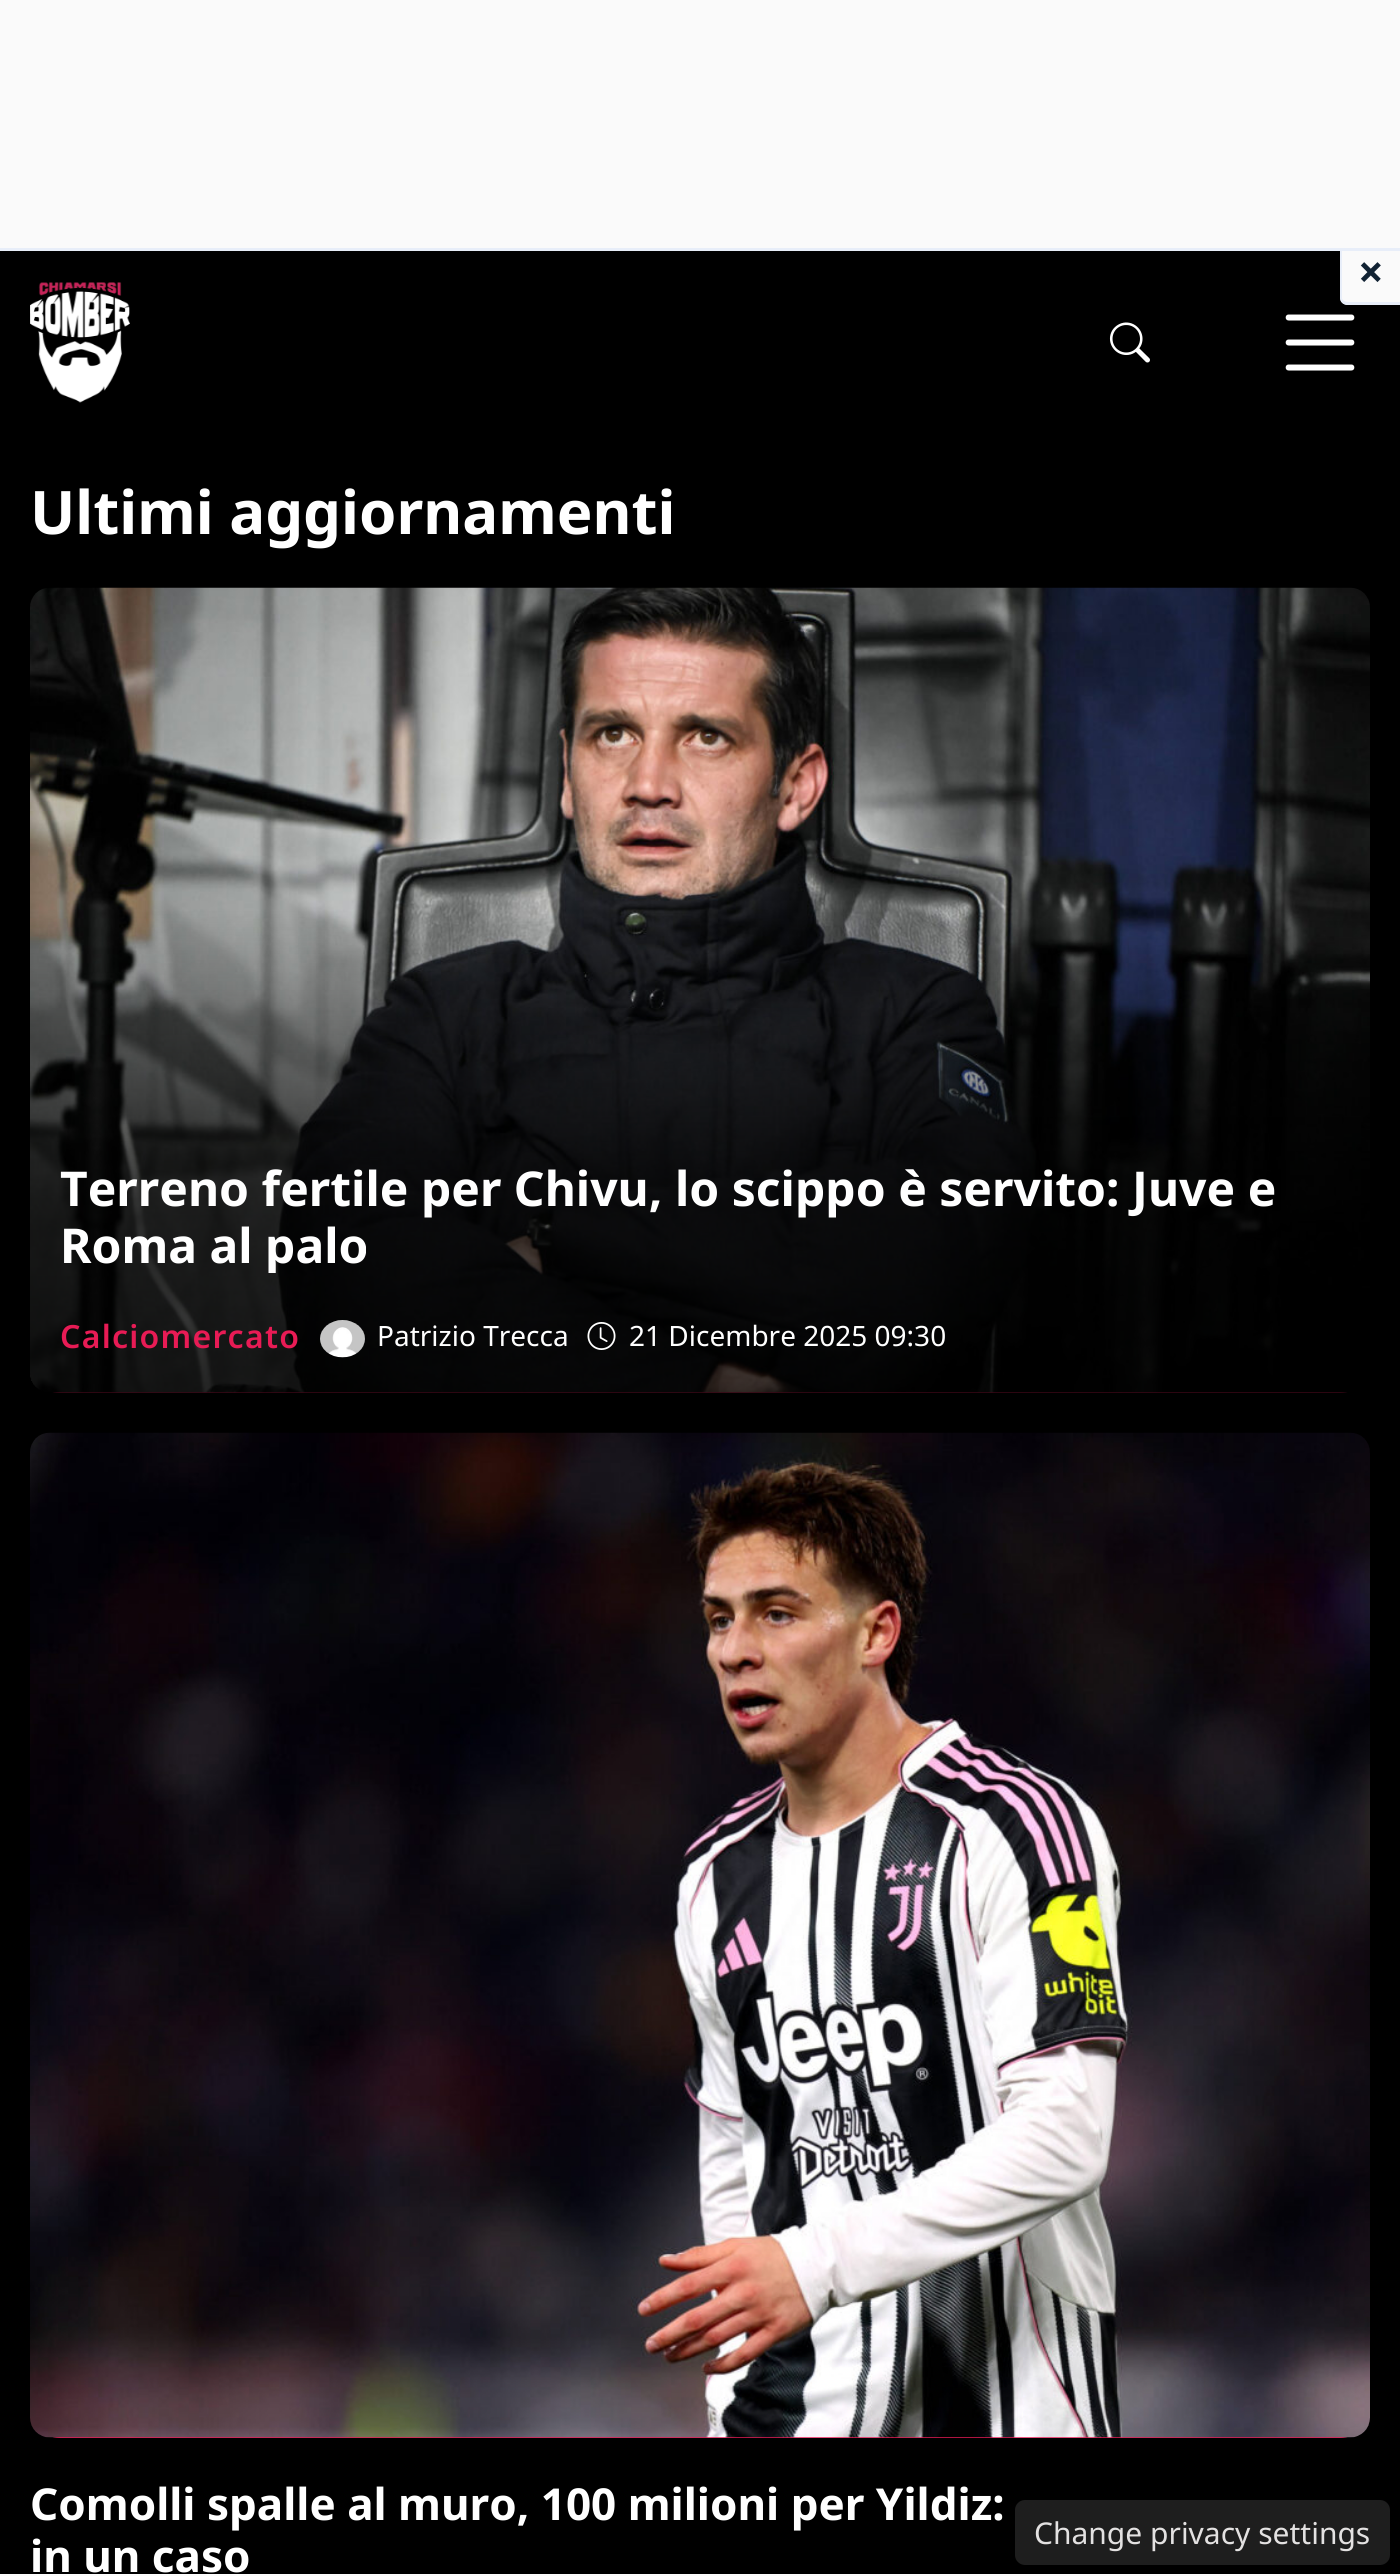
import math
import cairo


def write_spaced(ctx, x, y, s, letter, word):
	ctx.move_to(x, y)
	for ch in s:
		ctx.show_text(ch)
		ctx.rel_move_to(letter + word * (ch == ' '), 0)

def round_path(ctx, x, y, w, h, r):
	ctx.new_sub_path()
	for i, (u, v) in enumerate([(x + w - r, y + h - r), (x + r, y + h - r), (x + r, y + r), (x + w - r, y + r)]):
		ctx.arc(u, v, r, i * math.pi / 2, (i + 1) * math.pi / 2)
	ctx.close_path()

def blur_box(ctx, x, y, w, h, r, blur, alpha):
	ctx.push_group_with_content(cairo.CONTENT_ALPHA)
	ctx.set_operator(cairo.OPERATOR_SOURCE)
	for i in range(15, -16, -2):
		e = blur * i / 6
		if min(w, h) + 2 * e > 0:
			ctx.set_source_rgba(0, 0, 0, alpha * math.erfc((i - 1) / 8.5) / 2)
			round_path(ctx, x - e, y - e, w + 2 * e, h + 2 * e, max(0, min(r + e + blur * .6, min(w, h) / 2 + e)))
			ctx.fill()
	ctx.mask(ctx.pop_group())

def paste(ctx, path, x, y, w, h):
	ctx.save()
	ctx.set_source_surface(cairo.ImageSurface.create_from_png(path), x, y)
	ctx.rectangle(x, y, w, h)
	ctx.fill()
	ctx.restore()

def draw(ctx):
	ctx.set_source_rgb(0, 0, 0)
	ctx.paint()
	ctx.set_source_rgb(0.98, 0.98, 0.98)
	ctx.new_path()
	ctx.move_to(1340, 245)
	ctx.line_to(1400, 245)
	ctx.line_to(1400, 305)
	ctx.line_to(1348, 305)
	ctx.curve_to(1343.5, 305, 1340, 301.5, 1340, 297)
	ctx.close_path()
	ctx.fill()
	ctx.set_source_rgb(0.91, 0.933, 0.976)
	ctx.set_fill_rule(cairo.FILL_RULE_EVEN_ODD)
	ctx.new_path()
	ctx.move_to(1340, 245)
	ctx.line_to(1400, 245)
	ctx.line_to(1400, 305)
	ctx.line_to(1348, 305)
	ctx.curve_to(1343, 305, 1340, 302, 1340, 298)
	ctx.close_path()
	ctx.move_to(1342, 245)
	ctx.line_to(1400, 245)
	ctx.line_to(1400, 302)
	ctx.line_to(1348, 302)
	ctx.curve_to(1345, 302, 1342, 300, 1342, 298)
	ctx.close_path()
	ctx.fill()
	ctx.set_source_rgb(0.98, 0.98, 0.98)
	ctx.rectangle(0, 0, 1400, 248)
	ctx.fill()
	ctx.set_source_rgb(0.91, 0.933, 0.976)
	ctx.rectangle(0, 248, 1400, 3)
	ctx.fill()
	ctx.select_font_face('Noto Sans', cairo.FONT_SLANT_NORMAL, cairo.FONT_WEIGHT_BOLD)
	ctx.set_font_size(45)
	ctx.set_source_rgb(0.067, 0.133, 0.2)
	ctx.move_to(1358, 288)
	ctx.show_text('×')
	paste(ctx, 'media/1.png', 30, 282, 100, 121)
	paste(ctx, 'media/2.png', 1109, 322, 41, 41)
	paste(ctx, 'media/3.png', 1285, 314, 70, 57)
	ctx.set_font_size(60)
	ctx.set_source_rgb(1, 1, 1)
	ctx.move_to(30, 534)
	ctx.show_text('Ultimi aggiornamenti')
	ctx.set_source_rgb(0.91, 0.106, 0.333)
	round_path(ctx, 30, 588, 1340, 805, 30)
	ctx.fill()
	round_path(ctx, 30, 1433, 1340, 1005, 30)
	ctx.fill()
	ctx.save()
	ctx.new_path()
	ctx.move_to(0, 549)
	ctx.line_to(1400, 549)
	ctx.line_to(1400, 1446)
	ctx.line_to(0, 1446)
	ctx.close_path()
	ctx.move_to(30, 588)
	ctx.line_to(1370, 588)
	ctx.line_to(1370, 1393)
	ctx.line_to(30, 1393)
	ctx.close_path()
	ctx.clip()
	ctx.set_source_rgb(0, 0, 0)
	blur_box(ctx, 30, 595, 1340, 805, 0, 15, 0.6)
	ctx.restore()
	paste(ctx, 'media/4.png', 30, 587, 1340, 806)
	gradient = cairo.LinearGradient(700, 1393, 700, 910)
	gradient.add_color_stop_rgba(0, 0, 0, 0, 0.75)
	gradient.add_color_stop_rgba(0.4, 0, 0, 0, 0.7)
	gradient.add_color_stop_rgba(1, 0, 0, 0, 0)
	ctx.set_source(gradient)
	ctx.new_path()
	ctx.move_to(30, 910)
	ctx.line_to(1370, 910)
	ctx.line_to(1370, 1373)
	ctx.curve_to(1370, 1384, 1361, 1393, 1350, 1393)
	ctx.line_to(50, 1393)
	ctx.curve_to(39, 1393, 30, 1384, 30, 1373)
	ctx.close_path()
	ctx.fill()
	ctx.set_font_size(48)
	ctx.set_source_rgb(1, 1, 1)
	ctx.move_to(60, 1206)
	ctx.show_text('Terreno fertile per Chivu, lo scippo è servito: Juve e')
	ctx.save()
	ctx.set_fill_rule(cairo.FILL_RULE_WINDING)
	ctx.rectangle(60, 1158, 1280, 115)
	ctx.clip()
	ctx.move_to(60, 1263)
	ctx.show_text('Roma al palo')
	ctx.restore()
	ctx.select_font_face('Noto Sans SemiBold')
	ctx.set_font_size(32)
	ctx.set_source_rgb(0.91, 0.106, 0.333)
	write_spaced(ctx, 60, 1348, 'Calciomercato', 1.25, 0)
	paste(ctx, 'media/5.png', 320, 1320, 45, 38)
	ctx.select_font_face('Noto Sans')
	ctx.set_font_size(28)
	ctx.set_source_rgb(1, 1, 1)
	ctx.move_to(377, 1346)
	ctx.show_text('Patrizio Trecca')
	paste(ctx, 'media/6.png', 587, 1322, 29, 28)
	ctx.move_to(629, 1346)
	ctx.show_text('21 Dicembre 2025 09:30')
	ctx.save()
	ctx.new_path()
	ctx.move_to(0, 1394)
	ctx.line_to(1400, 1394)
	ctx.line_to(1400, 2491)
	ctx.line_to(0, 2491)
	ctx.close_path()
	ctx.move_to(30, 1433)
	ctx.line_to(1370, 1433)
	ctx.line_to(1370, 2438)
	ctx.line_to(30, 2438)
	ctx.close_path()
	ctx.clip()
	ctx.set_source_rgb(0, 0, 0)
	blur_box(ctx, 30, 1440, 1340, 1005, 0, 15, 0.6)
	ctx.restore()
	paste(ctx, 'media/7.png', 30, 1432, 1340, 1006)
	ctx.select_font_face('Noto Sans', cairo.FONT_SLANT_NORMAL, cairo.FONT_WEIGHT_BOLD)
	ctx.set_font_size(44)
	ctx.move_to(30, 2520)
	ctx.show_text('Comolli spalle al muro, 100 milioni per Yildiz:')
	ctx.move_to(30, 2572)
	ctx.show_text('in un caso')
	ctx.set_source_rgb(0.118, 0.118, 0.118)
	round_path(ctx, 1015, 2500, 375, 65, 10)
	ctx.fill()
	ctx.select_font_face('Noto Sans')
	ctx.set_font_size(30)
	ctx.set_source_rgb(0.89, 0.882, 0.882)
	ctx.move_to(1034, 2544)
	ctx.show_text('Change privacy settings')


surface = cairo.ImageSurface(cairo.FORMAT_RGB24, 1400, 2574)
ctx = cairo.Context(surface)
options = cairo.FontOptions()
options.set_hint_metrics(cairo.HINT_METRICS_OFF)
options.set_hint_style(cairo.HINT_STYLE_NONE)
ctx.set_font_options(options)
ctx.set_miter_limit(4)
draw(ctx)
surface.write_to_png('image.png')
